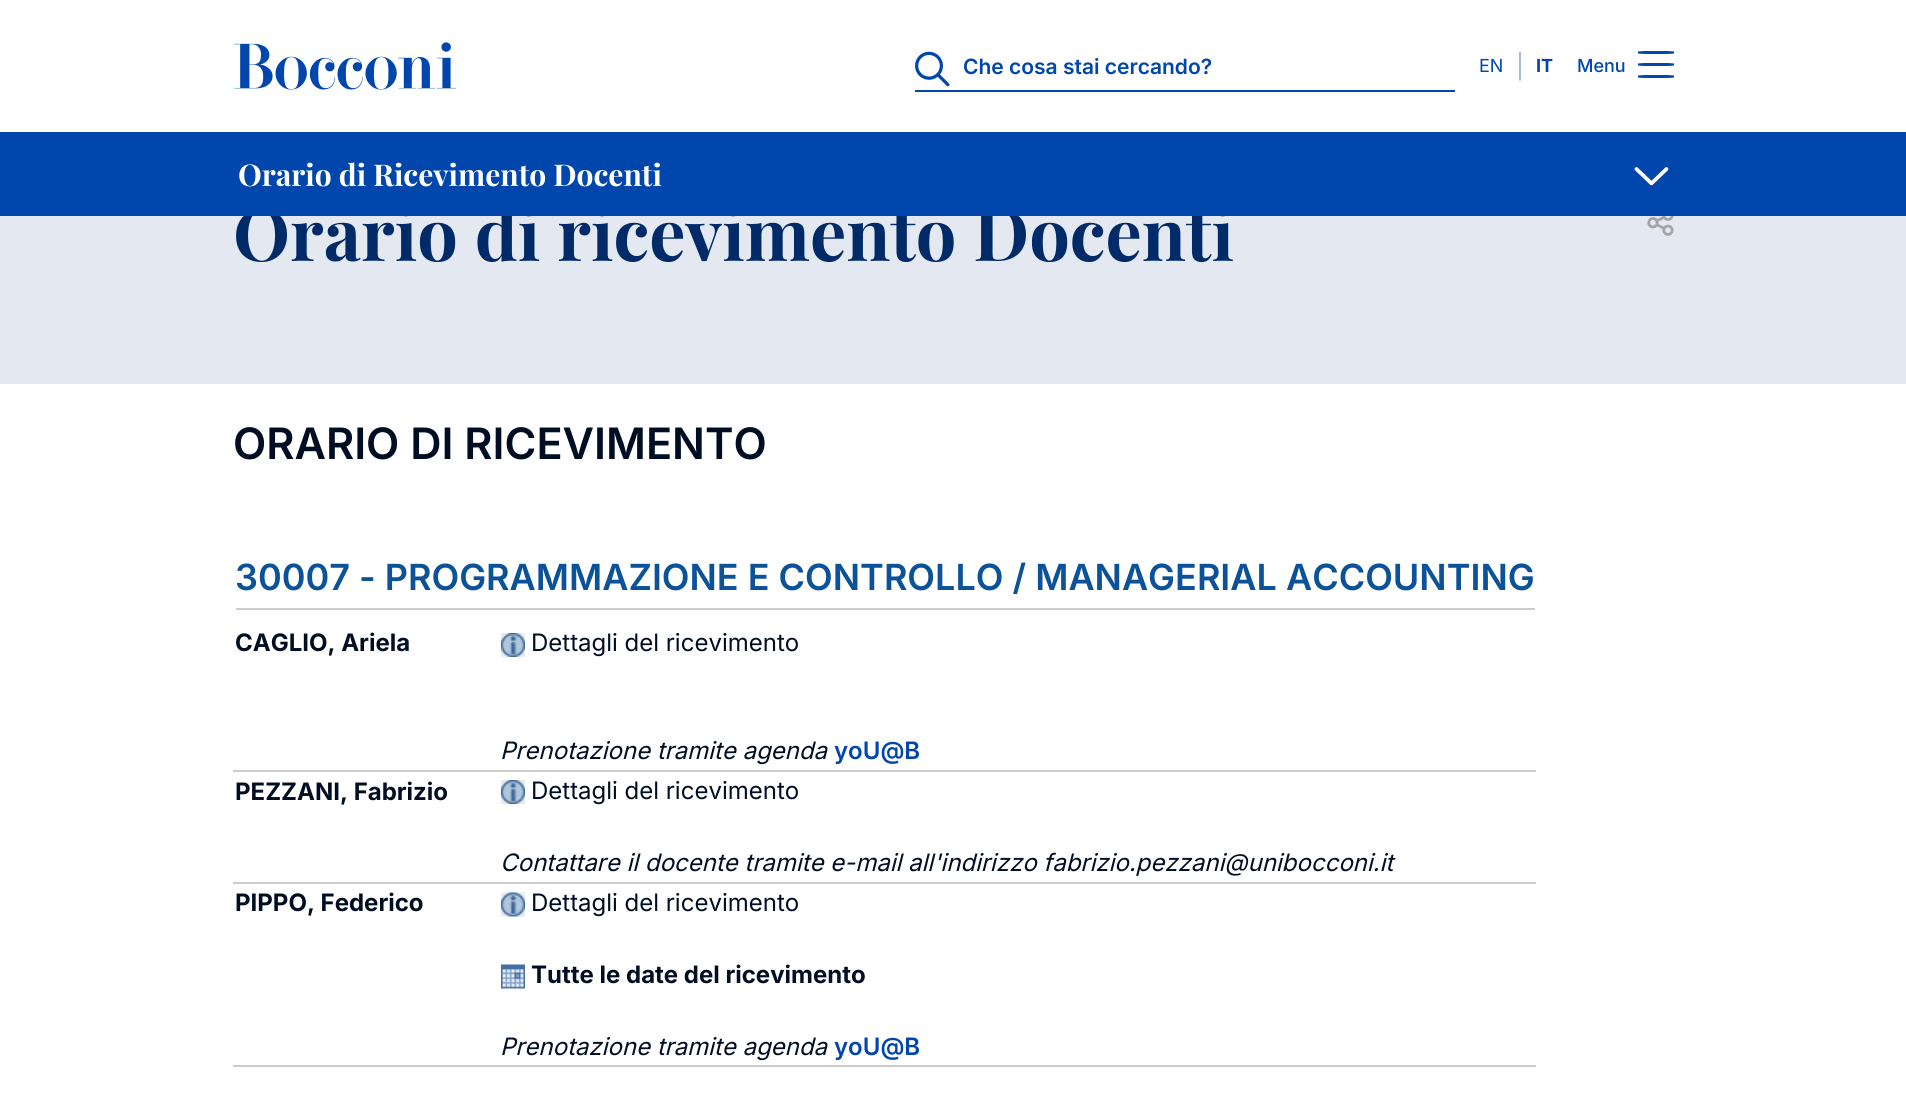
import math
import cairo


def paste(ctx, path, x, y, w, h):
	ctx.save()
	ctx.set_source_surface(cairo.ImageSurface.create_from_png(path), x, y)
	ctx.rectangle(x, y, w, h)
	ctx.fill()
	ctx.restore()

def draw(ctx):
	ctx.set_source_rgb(1, 1, 1)
	ctx.paint()
	paste(ctx, 'media/1.png', 234, 42, 222, 48)
	ctx.set_source_rgb(0, 0.275, 0.678)
	ctx.rectangle(915, 90, 540, 2)
	ctx.fill()
	paste(ctx, 'media/2.png', 915, 51, 35, 36)
	ctx.select_font_face('Inter SemiBold')
	ctx.set_font_size(21)
	ctx.move_to(963, 74)
	ctx.show_text('Che cosa stai cercando?')
	ctx.select_font_face('Inter')
	ctx.set_font_size(18)
	ctx.move_to(1479, 72)
	ctx.show_text('EN')
	ctx.set_font_size(24)
	ctx.set_source_rgb(0.635, 0.722, 0.851)
	ctx.move_to(1516, 75)
	ctx.show_text('|')
	ctx.select_font_face('Inter', cairo.FONT_SLANT_NORMAL, cairo.FONT_WEIGHT_BOLD)
	ctx.set_font_size(18)
	ctx.set_source_rgb(0, 0.275, 0.678)
	ctx.move_to(1536, 72)
	ctx.show_text('IT')
	ctx.select_font_face('Inter Medium')
	ctx.move_to(1577, 72)
	ctx.show_text('Menu')
	ctx.new_path()
	ctx.move_to(1645, 51)
	ctx.line_to(1667, 51)
	ctx.curve_to(1671, 51, 1674, 51.5, 1674, 51.5)
	ctx.line_to(1674, 53.5)
	ctx.curve_to(1674, 53.5, 1671, 54, 1667, 54)
	ctx.line_to(1645, 54)
	ctx.curve_to(1641, 54, 1638, 53.5, 1638, 53.5)
	ctx.line_to(1638, 51.5)
	ctx.curve_to(1638, 51.5, 1641, 51, 1645, 51)
	ctx.close_path()
	ctx.move_to(1645, 63)
	ctx.line_to(1667, 63)
	ctx.curve_to(1671, 63, 1674, 63.5, 1674, 63.5)
	ctx.line_to(1674, 65.5)
	ctx.curve_to(1674, 65.5, 1671, 66, 1667, 66)
	ctx.line_to(1645, 66)
	ctx.curve_to(1641, 66, 1638, 65.5, 1638, 65.5)
	ctx.line_to(1638, 63.5)
	ctx.curve_to(1638, 63.5, 1641, 63, 1645, 63)
	ctx.close_path()
	ctx.move_to(1645, 75)
	ctx.line_to(1667, 75)
	ctx.curve_to(1671, 75, 1674, 75.5, 1674, 75.5)
	ctx.line_to(1674, 77.5)
	ctx.curve_to(1674, 77.5, 1671, 78, 1667, 78)
	ctx.line_to(1645, 78)
	ctx.curve_to(1641, 78, 1638, 77.5, 1638, 77.5)
	ctx.line_to(1638, 75.5)
	ctx.curve_to(1638, 75.5, 1641, 75, 1645, 75)
	ctx.close_path()
	ctx.fill()
	ctx.set_source_rgb(0.894, 0.914, 0.945)
	ctx.rectangle(0, 216, 1906, 168)
	ctx.fill()
	ctx.select_font_face('Playfair Display', cairo.FONT_SLANT_NORMAL, cairo.FONT_WEIGHT_BOLD)
	ctx.set_font_size(72)
	ctx.set_source_rgb(0, 0.165, 0.408)
	ctx.move_to(233, 261)
	ctx.show_text('Orario di ricevimento Docenti')
	ctx.set_source_rgb(0, 0.275, 0.678)
	ctx.rectangle(0, 132, 1906, 84)
	ctx.fill()
	ctx.set_font_size(30)
	ctx.set_source_rgb(1, 1, 1)
	ctx.move_to(238, 186)
	ctx.show_text('Orario di Ricevimento Docenti')
	paste(ctx, 'media/3.png', 1634, 167, 35, 19)
	paste(ctx, 'media/4.png', 1647, 216, 27, 20)
	ctx.select_font_face('Inter SemiBold')
	ctx.set_font_size(43.25)
	ctx.set_source_rgb(0, 0.055, 0.137)
	ctx.move_to(233, 459)
	ctx.show_text('ORARIO DI RICEVIMENTO')
	ctx.set_source_rgb(0.8, 0.8, 0.8)
	ctx.rectangle(236, 608, 1299, 2)
	ctx.fill()
	ctx.set_font_size(36)
	ctx.set_source_rgb(0.047, 0.322, 0.6)
	ctx.move_to(235, 590)
	ctx.show_text('30007 - PROGRAMMAZIONE E CONTROLLO / MANAGERIAL ACCOUNTING')
	ctx.select_font_face('Inter', cairo.FONT_SLANT_NORMAL, cairo.FONT_WEIGHT_BOLD)
	ctx.set_font_size(24)
	ctx.set_source_rgb(0, 0.055, 0.137)
	ctx.move_to(235, 651)
	ctx.show_text('CAGLIO, Ariela')
	ctx.set_source_rgb(0.8, 0.8, 0.8)
	ctx.rectangle(233, 770, 1303, 2)
	ctx.fill()
	paste(ctx, 'media/5.png', 501, 633, 24, 24)
	ctx.select_font_face('Inter')
	ctx.set_source_rgb(0, 0.055, 0.137)
	ctx.move_to(531, 651)
	ctx.show_text('Dettagli del ricevimento')
	ctx.select_font_face('Inter', cairo.FONT_SLANT_ITALIC)
	ctx.move_to(500, 759)
	ctx.show_text('Prenotazione tramite agenda')
	ctx.select_font_face('Inter SemiBold')
	ctx.set_source_rgb(0, 0.275, 0.678)
	ctx.move_to(834, 759)
	ctx.show_text('yoU@B')
	ctx.select_font_face('Inter', cairo.FONT_SLANT_NORMAL, cairo.FONT_WEIGHT_BOLD)
	ctx.set_source_rgb(0, 0.055, 0.137)
	ctx.move_to(235, 800)
	ctx.show_text('PEZZANI, Fabrizio')
	ctx.set_source_rgb(0.8, 0.8, 0.8)
	ctx.rectangle(233, 882, 1303, 2)
	ctx.fill()
	paste(ctx, 'media/5.png', 501, 780, 24, 24)
	ctx.select_font_face('Inter')
	ctx.set_source_rgb(0, 0.055, 0.137)
	ctx.move_to(531, 799)
	ctx.show_text('Dettagli del ricevimento')
	ctx.select_font_face('Inter', cairo.FONT_SLANT_ITALIC)
	ctx.move_to(500, 871)
	ctx.show_text('Contattare il docente tramite e-mail all\'indirizzo fabrizio.pezzani@unibocconi.it')
	ctx.select_font_face('Inter', cairo.FONT_SLANT_NORMAL, cairo.FONT_WEIGHT_BOLD)
	ctx.move_to(235, 911)
	ctx.show_text('PIPPO, Federico')
	ctx.set_source_rgb(0.8, 0.8, 0.8)
	ctx.rectangle(233, 1065, 1303, 2)
	ctx.fill()
	paste(ctx, 'media/6.png', 501, 892, 24, 25)
	ctx.select_font_face('Inter')
	ctx.set_source_rgb(0, 0.055, 0.137)
	ctx.move_to(531, 911)
	ctx.show_text('Dettagli del ricevimento')
	paste(ctx, 'media/7.png', 501, 964, 24, 25)
	ctx.select_font_face('Inter', cairo.FONT_SLANT_NORMAL, cairo.FONT_WEIGHT_BOLD)
	ctx.move_to(531, 983)
	ctx.show_text('Tutte le date del ricevimento')
	ctx.select_font_face('Inter', cairo.FONT_SLANT_ITALIC)
	ctx.move_to(500, 1055)
	ctx.show_text('Prenotazione tramite agenda')
	ctx.select_font_face('Inter SemiBold')
	ctx.set_source_rgb(0, 0.275, 0.678)
	ctx.move_to(834, 1055)
	ctx.show_text('yoU@B')


surface = cairo.ImageSurface(cairo.FORMAT_RGB24, 1906, 1113)
ctx = cairo.Context(surface)
options = cairo.FontOptions()
options.set_hint_metrics(cairo.HINT_METRICS_OFF)
options.set_hint_style(cairo.HINT_STYLE_NONE)
ctx.set_font_options(options)
ctx.set_miter_limit(4)
draw(ctx)
surface.write_to_png('image.png')
